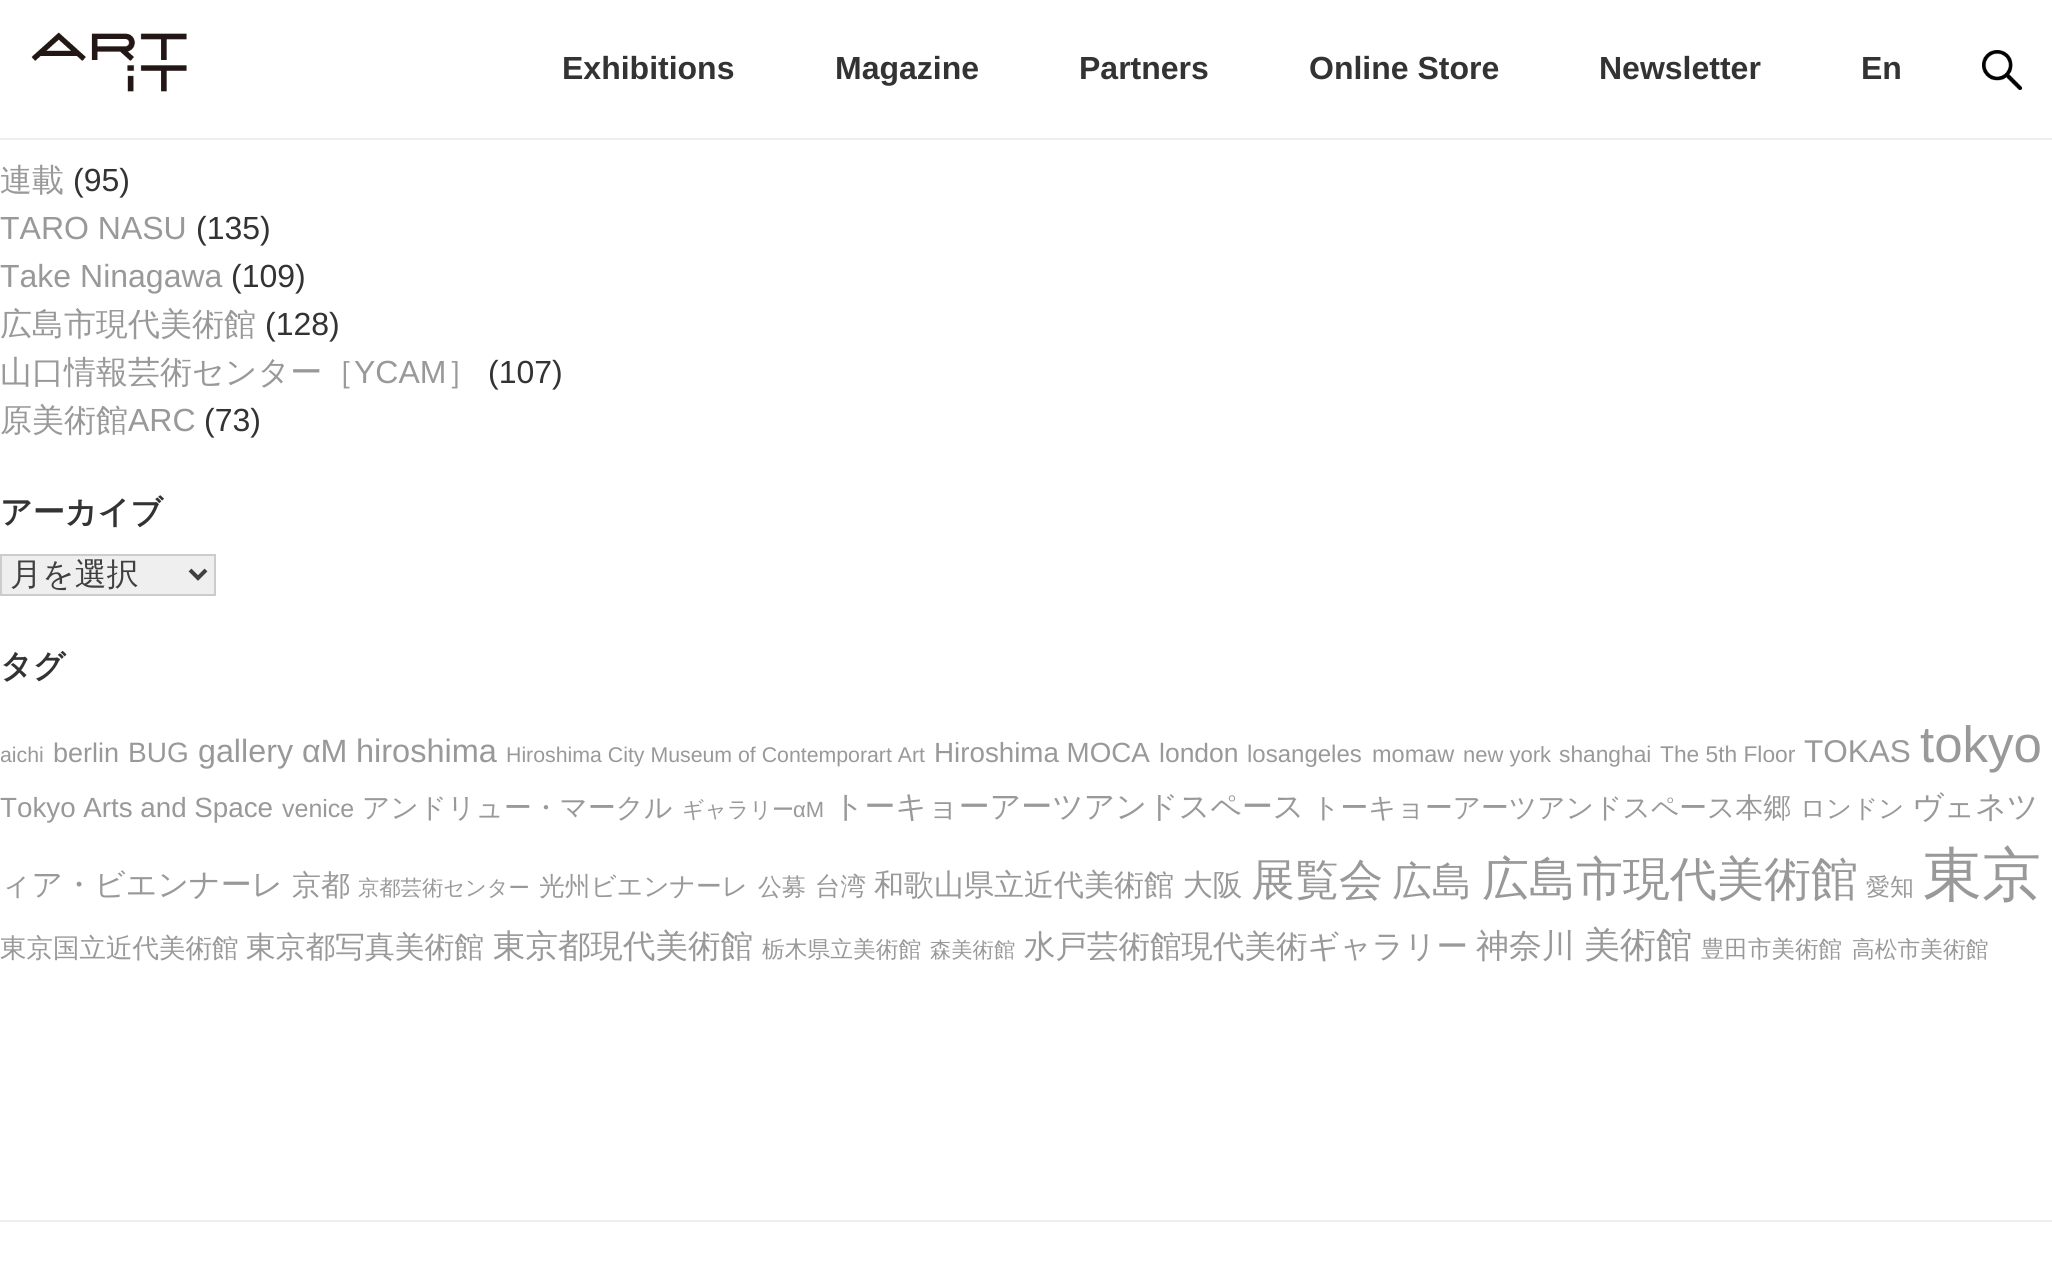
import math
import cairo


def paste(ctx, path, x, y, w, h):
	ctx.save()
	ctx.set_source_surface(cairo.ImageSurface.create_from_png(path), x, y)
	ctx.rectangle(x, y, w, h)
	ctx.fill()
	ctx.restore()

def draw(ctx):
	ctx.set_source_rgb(1, 1, 1)
	ctx.paint()
	ctx.set_source_rgb(0.933, 0.933, 0.933)
	ctx.rectangle(0, 138, 2052, 2)
	ctx.fill()
	paste(ctx, 'media/1.png', 31, 32, 156, 60)
	ctx.select_font_face('Liberation Sans', cairo.FONT_SLANT_NORMAL, cairo.FONT_WEIGHT_BOLD)
	ctx.set_font_size(32)
	ctx.set_source_rgb(0.2, 0.2, 0.2)
	for x, y, s in [
		(562, 79, 'Exhibitions'),
		(835, 79, 'Magazine'),
		(1079, 79, 'Partners'),
		(1309, 79, 'Online Store'),
		(1599, 79, 'Newsletter'),
		(1861, 79, 'En'),
	]:
		ctx.move_to(x, y)
		ctx.show_text(s)
	paste(ctx, 'media/2.png', 1982, 50, 40, 40)
	ctx.select_font_face('WenQuanYi Zen Hei Medium')
	ctx.set_source_rgb(0.6, 0.6, 0.6)
	ctx.move_to(0, 191)
	ctx.show_text('連載')
	ctx.select_font_face('Liberation Sans')
	ctx.set_source_rgb(0.2, 0.2, 0.2)
	ctx.move_to(73, 191)
	ctx.show_text('(95)')
	ctx.set_source_rgb(0.6, 0.6, 0.6)
	ctx.move_to(0, 239)
	ctx.show_text('TARO NASU')
	ctx.set_source_rgb(0.2, 0.2, 0.2)
	ctx.move_to(196, 239)
	ctx.show_text('(135)')
	ctx.set_source_rgb(0.6, 0.6, 0.6)
	ctx.move_to(0, 287)
	ctx.show_text('Take Ninagawa')
	ctx.set_source_rgb(0.2, 0.2, 0.2)
	ctx.move_to(231, 287)
	ctx.show_text('(109)')
	ctx.select_font_face('WenQuanYi Zen Hei Medium')
	ctx.set_source_rgb(0.6, 0.6, 0.6)
	ctx.move_to(0, 335)
	ctx.show_text('広島市現代美術館')
	ctx.select_font_face('Liberation Sans')
	ctx.set_source_rgb(0.2, 0.2, 0.2)
	ctx.move_to(265, 335)
	ctx.show_text('(128)')
	ctx.select_font_face('WenQuanYi Zen Hei Medium')
	ctx.set_source_rgb(0.6, 0.6, 0.6)
	ctx.move_to(0, 383)
	ctx.show_text('山口情報芸術センター［')
	ctx.select_font_face('Liberation Sans')
	ctx.move_to(354, 383)
	ctx.show_text('YCAM')
	ctx.select_font_face('WenQuanYi Zen Hei Medium')
	ctx.move_to(447, 383)
	ctx.show_text('］')
	ctx.select_font_face('Liberation Sans')
	ctx.set_source_rgb(0.2, 0.2, 0.2)
	ctx.move_to(488, 383)
	ctx.show_text('(107)')
	ctx.select_font_face('WenQuanYi Zen Hei Medium')
	ctx.set_source_rgb(0.6, 0.6, 0.6)
	ctx.move_to(0, 431)
	ctx.show_text('原美術館')
	ctx.select_font_face('Liberation Sans')
	ctx.move_to(128, 431)
	ctx.show_text('ARC')
	ctx.set_source_rgb(0.2, 0.2, 0.2)
	ctx.move_to(204, 431)
	ctx.show_text('(73)')
	ctx.select_font_face('WenQuanYi Zen Hei', cairo.FONT_SLANT_NORMAL, cairo.FONT_WEIGHT_BOLD)
	ctx.move_to(0, 523)
	ctx.show_text('アーカイブ')
	ctx.set_source_rgb(0.937, 0.937, 0.937)
	ctx.rectangle(1, 555, 214, 40)
	ctx.fill_preserve()
	ctx.set_source_rgb(0.8, 0.8, 0.8)
	ctx.stroke()
	ctx.new_path()
	ctx.move_to(190, 570)
	ctx.line_to(198, 578)
	ctx.line_to(206, 570)
	ctx.set_source_rgb(0.251, 0.251, 0.251)
	ctx.set_line_width(4)
	ctx.stroke()
	ctx.select_font_face('WenQuanYi Zen Hei Medium')
	ctx.move_to(10, 585)
	ctx.show_text('月を選択')
	ctx.select_font_face('WenQuanYi Zen Hei', cairo.FONT_SLANT_NORMAL, cairo.FONT_WEIGHT_BOLD)
	ctx.set_source_rgb(0.2, 0.2, 0.2)
	ctx.move_to(0, 677)
	ctx.show_text('タグ')
	ctx.select_font_face('Liberation Sans')
	ctx.set_font_size(21.3)
	ctx.set_source_rgb(0.6, 0.6, 0.6)
	ctx.move_to(0, 762)
	ctx.show_text('aichi')
	ctx.set_font_size(27)
	ctx.move_to(53, 762)
	ctx.show_text('berlin')
	ctx.set_font_size(28)
	ctx.move_to(128, 762)
	ctx.show_text('BUG')
	ctx.set_font_size(32.25)
	ctx.move_to(198, 762)
	ctx.show_text('gallery αM')
	ctx.set_font_size(32.5)
	ctx.move_to(356, 762)
	ctx.show_text('hiroshima')
	ctx.set_font_size(21.3)
	ctx.move_to(506, 762)
	ctx.show_text('Hiroshima City Museum of Contemporart Art')
	ctx.set_font_size(27.75)
	ctx.move_to(934, 762)
	ctx.show_text('Hiroshima MOCA')
	ctx.set_font_size(26.5)
	ctx.move_to(1159, 762)
	ctx.show_text('london')
	ctx.set_font_size(24)
	ctx.move_to(1247, 762)
	ctx.show_text('losangeles')
	ctx.set_font_size(23.5)
	ctx.move_to(1372, 762)
	ctx.show_text('momaw')
	ctx.set_font_size(22)
	ctx.move_to(1463, 762)
	ctx.show_text('new york')
	ctx.set_font_size(22.75)
	ctx.move_to(1559, 762)
	ctx.show_text('shanghai')
	ctx.move_to(1660, 762)
	ctx.show_text('The 5th Floor')
	ctx.set_font_size(31.5)
	ctx.move_to(1804, 762)
	ctx.show_text('TOKAS')
	ctx.set_font_size(51)
	ctx.move_to(1920, 762)
	ctx.show_text('tokyo')
	ctx.set_font_size(27.75)
	ctx.move_to(0, 817)
	ctx.show_text('Tokyo Arts and Space')
	ctx.set_font_size(25)
	ctx.move_to(282, 817)
	ctx.show_text('venice')
	ctx.select_font_face('WenQuanYi Zen Hei Medium')
	ctx.set_font_size(27.75)
	ctx.move_to(362, 817)
	ctx.show_text('アンドリュー・マークル')
	ctx.set_font_size(22)
	ctx.move_to(682, 817)
	ctx.show_text('ギャラリー')
	ctx.select_font_face('Liberation Sans')
	ctx.move_to(793, 817)
	ctx.show_text('αM')
	ctx.select_font_face('WenQuanYi Zen Hei Medium')
	ctx.set_font_size(30.9)
	ctx.move_to(833, 817)
	ctx.show_text('トーキョーアーツアンドスペース')
	ctx.set_font_size(27.75)
	ctx.move_to(1312, 817)
	ctx.show_text('トーキョーアーツアンドスペース本郷')
	ctx.set_font_size(25.5)
	ctx.move_to(1800, 817)
	ctx.show_text('ロンドン')
	ctx.set_font_size(30.9)
	ctx.move_to(1912, 817)
	ctx.show_text('ヴェネツ')
	ctx.move_to(0, 895)
	ctx.show_text('ィア・ビエンナーレ')
	ctx.set_font_size(29)
	ctx.move_to(292, 895)
	ctx.show_text('京都')
	ctx.set_font_size(21.3)
	ctx.move_to(358, 895)
	ctx.show_text('京都芸術センター')
	ctx.set_font_size(25.75)
	ctx.move_to(539, 895)
	ctx.show_text('光州ビエンナーレ')
	ctx.set_font_size(24)
	ctx.move_to(758, 895)
	ctx.show_text('公募')
	ctx.set_font_size(25.5)
	ctx.move_to(815, 895)
	ctx.show_text('台湾')
	ctx.set_font_size(30)
	ctx.move_to(874, 895)
	ctx.show_text('和歌山県立近代美術館')
	ctx.set_font_size(29.75)
	ctx.move_to(1183, 895)
	ctx.show_text('大阪')
	ctx.set_font_size(44)
	ctx.move_to(1251, 895)
	ctx.show_text('展覧会')
	ctx.set_font_size(40)
	ctx.move_to(1392, 895)
	ctx.show_text('広島')
	ctx.set_font_size(47)
	ctx.move_to(1482, 895)
	ctx.show_text('広島市現代美術館')
	ctx.set_font_size(24)
	ctx.move_to(1866, 895)
	ctx.show_text('愛知')
	ctx.set_font_size(59)
	ctx.move_to(1923, 895)
	ctx.show_text('東京')
	ctx.set_font_size(26.5)
	ctx.move_to(0, 957)
	ctx.show_text('東京国立近代美術館')
	ctx.set_font_size(29.75)
	ctx.move_to(246, 957)
	ctx.show_text('東京都写真美術館')
	ctx.set_font_size(32.5)
	ctx.move_to(493, 957)
	ctx.show_text('東京都現代美術館')
	ctx.set_font_size(22.75)
	ctx.move_to(762, 957)
	ctx.show_text('栃木県立美術館')
	ctx.set_font_size(21.3)
	ctx.move_to(930, 957)
	ctx.show_text('森美術館')
	ctx.set_font_size(31.5)
	ctx.move_to(1024, 957)
	ctx.show_text('水戸芸術館現代美術ギャラリー')
	ctx.set_font_size(33)
	ctx.move_to(1476, 957)
	ctx.show_text('神奈川')
	ctx.set_font_size(36)
	ctx.move_to(1584, 957)
	ctx.show_text('美術館')
	ctx.set_font_size(23.5)
	ctx.move_to(1701, 957)
	ctx.show_text('豊田市美術館')
	ctx.set_font_size(22.75)
	ctx.move_to(1852, 957)
	ctx.show_text('高松市美術館')
	ctx.set_source_rgb(0.933, 0.933, 0.933)
	ctx.rectangle(0, 1220, 2052, 2)
	ctx.fill()


surface = cairo.ImageSurface(cairo.FORMAT_RGB24, 2052, 1270)
ctx = cairo.Context(surface)
options = cairo.FontOptions()
options.set_hint_metrics(cairo.HINT_METRICS_OFF)
options.set_hint_style(cairo.HINT_STYLE_NONE)
ctx.set_font_options(options)
ctx.set_miter_limit(4)
draw(ctx)
surface.write_to_png('image.png')
